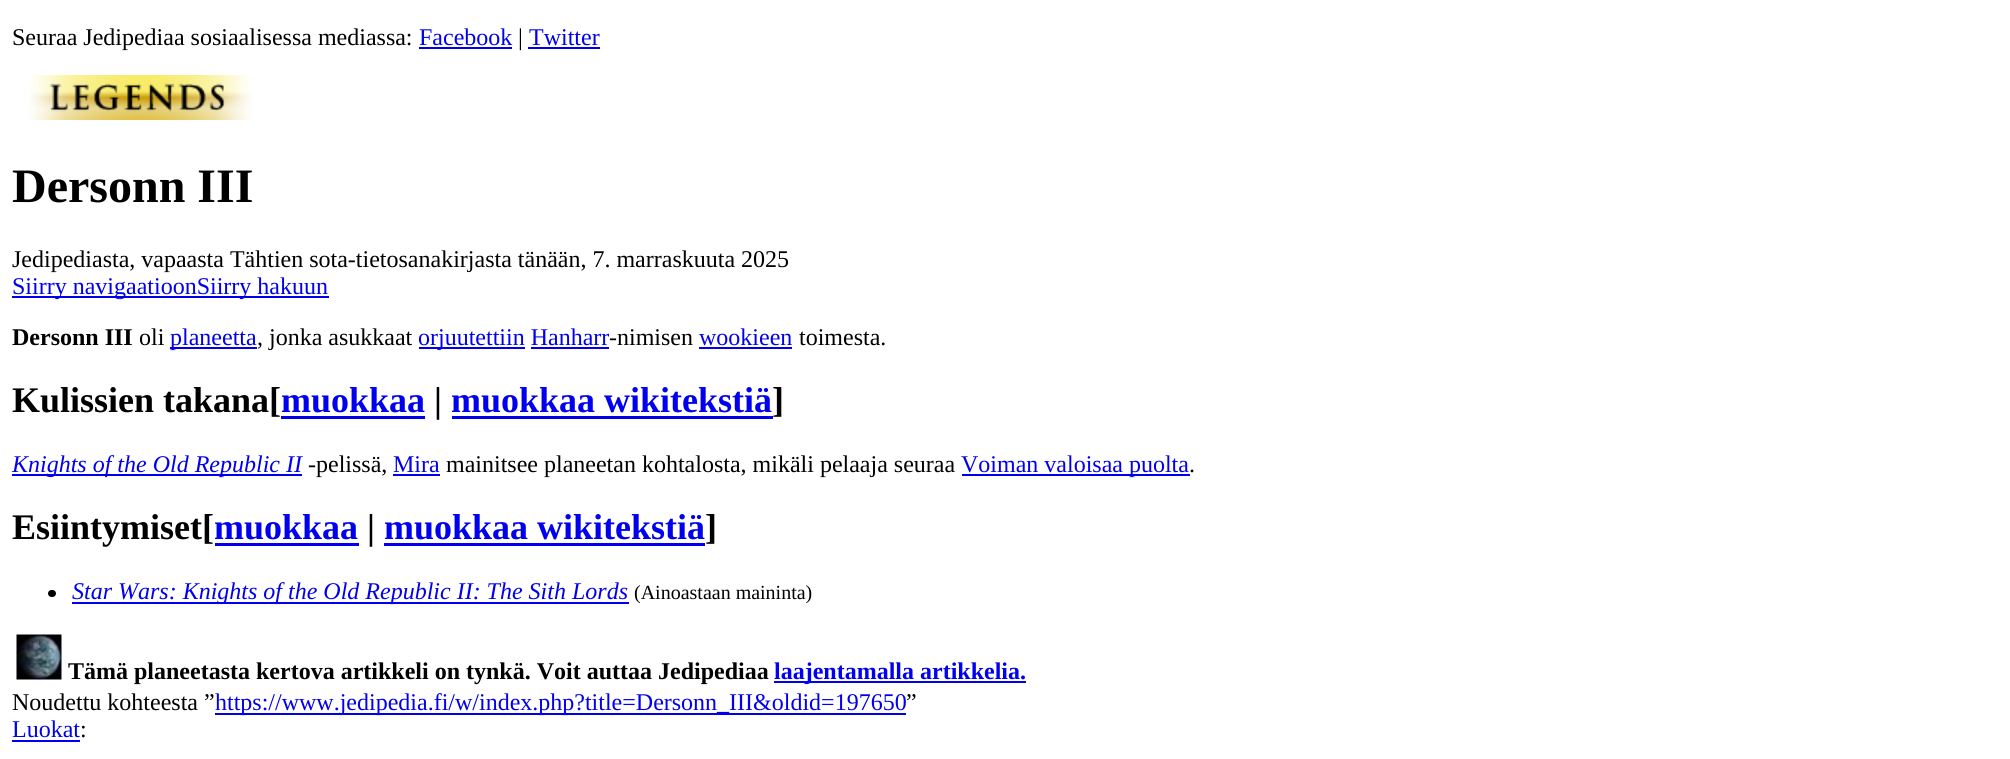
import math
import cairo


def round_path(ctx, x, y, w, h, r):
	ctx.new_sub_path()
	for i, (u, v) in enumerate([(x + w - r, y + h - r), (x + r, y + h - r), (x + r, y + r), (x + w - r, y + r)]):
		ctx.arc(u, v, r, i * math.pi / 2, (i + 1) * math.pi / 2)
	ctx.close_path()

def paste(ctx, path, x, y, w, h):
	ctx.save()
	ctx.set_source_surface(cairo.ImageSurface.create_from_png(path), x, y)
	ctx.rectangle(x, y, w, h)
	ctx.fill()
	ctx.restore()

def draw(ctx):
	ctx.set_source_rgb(1, 1, 1)
	ctx.paint()
	ctx.select_font_face('Liberation Serif')
	ctx.set_font_size(24)
	ctx.set_source_rgb(0, 0, 0)
	ctx.move_to(12, 45)
	ctx.show_text('Seuraa Jedipediaa sosiaalisessa mediassa:')
	ctx.set_source_rgb(0, 0, 0.933)
	ctx.move_to(419, 45)
	ctx.show_text('Facebook')
	ctx.rectangle(419, 47, 93, 2)
	ctx.fill()
	ctx.set_source_rgb(0, 0, 0)
	ctx.move_to(518, 45)
	ctx.show_text('|')
	ctx.set_source_rgb(0, 0, 0.933)
	ctx.move_to(529, 45)
	ctx.show_text('Twitter')
	ctx.rectangle(528, 47, 72, 2)
	ctx.fill()
	paste(ctx, 'media/1.png', 29, 75, 223, 45)
	ctx.select_font_face('Liberation Serif', cairo.FONT_SLANT_NORMAL, cairo.FONT_WEIGHT_BOLD)
	ctx.set_font_size(48)
	ctx.set_source_rgb(0, 0, 0)
	ctx.move_to(12, 202)
	ctx.show_text('Dersonn III')
	ctx.select_font_face('Liberation Serif')
	ctx.set_font_size(24)
	ctx.move_to(12, 267)
	ctx.show_text('Jedipediasta, vapaasta Tähtien sota-tietosanakirjasta tänään, 7. marraskuuta 2025')
	ctx.set_source_rgb(0, 0, 0.933)
	ctx.rectangle(12, 296, 317, 2)
	ctx.fill()
	ctx.move_to(12, 294)
	ctx.show_text('Siirry navigaatioonSiirry hakuun')
	ctx.select_font_face('Liberation Serif', cairo.FONT_SLANT_NORMAL, cairo.FONT_WEIGHT_BOLD)
	ctx.set_source_rgb(0, 0, 0)
	ctx.move_to(12, 345)
	ctx.show_text('Dersonn III')
	ctx.select_font_face('Liberation Serif')
	ctx.move_to(139, 345)
	ctx.show_text('oli')
	ctx.set_source_rgb(0, 0, 0.933)
	ctx.rectangle(170, 347, 87, 2)
	ctx.fill()
	ctx.move_to(170, 345)
	ctx.show_text('planeetta')
	ctx.set_source_rgb(0, 0, 0)
	ctx.move_to(257, 345)
	ctx.show_text(', jonka asukkaat')
	ctx.set_source_rgb(0, 0, 0.933)
	ctx.rectangle(419, 347, 106, 2)
	ctx.fill()
	ctx.move_to(418, 345)
	ctx.show_text('orjuutettiin Hanharr')
	ctx.set_source_rgb(0, 0, 0)
	ctx.move_to(609, 345)
	ctx.show_text('-nimisen')
	ctx.set_source_rgb(0, 0, 0.933)
	ctx.move_to(699, 345)
	ctx.show_text('wookieen')
	ctx.rectangle(699, 347, 93, 2)
	ctx.fill()
	ctx.set_source_rgb(0, 0, 0)
	ctx.move_to(799, 345)
	ctx.show_text('toimesta.')
	ctx.set_source_rgb(0, 0, 0.933)
	ctx.rectangle(531, 347, 78, 2)
	ctx.fill()
	ctx.select_font_face('Liberation Serif', cairo.FONT_SLANT_NORMAL, cairo.FONT_WEIGHT_BOLD)
	ctx.set_font_size(36)
	ctx.set_source_rgb(0, 0, 0)
	ctx.move_to(12, 412)
	ctx.show_text('Kulissien takana[')
	ctx.set_source_rgb(0, 0, 0.933)
	ctx.move_to(281, 412)
	ctx.show_text('muokkaa')
	ctx.rectangle(281, 416, 144, 3)
	ctx.fill()
	ctx.set_source_rgb(0, 0, 0)
	ctx.move_to(434, 412)
	ctx.show_text('|')
	ctx.set_source_rgb(0, 0, 0.933)
	ctx.move_to(451, 412)
	ctx.show_text('muokkaa wikitekstiä')
	ctx.set_source_rgb(0, 0, 0)
	ctx.move_to(772, 412)
	ctx.show_text(']')
	ctx.set_source_rgb(0, 0, 0.933)
	ctx.rectangle(452, 416, 321, 3)
	ctx.fill()
	ctx.rectangle(12, 474, 290, 2)
	ctx.fill()
	ctx.select_font_face('Liberation Serif', cairo.FONT_SLANT_ITALIC)
	ctx.set_font_size(24)
	ctx.move_to(12, 472)
	ctx.show_text('Knights of the Old Republic II')
	ctx.select_font_face('Liberation Serif')
	ctx.set_source_rgb(0, 0, 0)
	ctx.move_to(308, 472)
	ctx.show_text('-pelissä,')
	ctx.set_source_rgb(0, 0, 0.933)
	ctx.move_to(393, 472)
	ctx.show_text('Mira')
	ctx.rectangle(393, 474, 47, 2)
	ctx.fill()
	ctx.set_source_rgb(0, 0, 0)
	ctx.move_to(446, 472)
	ctx.show_text('mainitsee planeetan kohtalosta, mikäli pelaaja seuraa')
	ctx.set_source_rgb(0, 0, 0.933)
	ctx.rectangle(962, 474, 228, 2)
	ctx.fill()
	ctx.move_to(961, 472)
	ctx.show_text('Voiman valoisaa puolta')
	ctx.set_source_rgb(0, 0, 0)
	ctx.move_to(1189, 472)
	ctx.show_text('.')
	ctx.select_font_face('Liberation Serif', cairo.FONT_SLANT_NORMAL, cairo.FONT_WEIGHT_BOLD)
	ctx.set_font_size(36)
	ctx.move_to(12, 539)
	ctx.show_text('Esiintymiset[')
	ctx.set_source_rgb(0, 0, 0.933)
	ctx.move_to(214, 539)
	ctx.show_text('muokkaa')
	ctx.rectangle(215, 543, 144, 3)
	ctx.fill()
	ctx.set_source_rgb(0, 0, 0)
	ctx.move_to(367, 539)
	ctx.show_text('|')
	ctx.set_source_rgb(0, 0, 0.933)
	ctx.move_to(384, 539)
	ctx.show_text('muokkaa wikitekstiä')
	ctx.set_source_rgb(0, 0, 0)
	ctx.move_to(705, 539)
	ctx.show_text(']')
	ctx.set_source_rgb(0, 0, 0.933)
	ctx.rectangle(384, 543, 321, 3)
	ctx.fill()
	ctx.set_source_rgb(0, 0, 0)
	round_path(ctx, 48, 590, 8, 7, 3.5)
	ctx.fill()
	ctx.set_source_rgb(0, 0, 0.933)
	ctx.rectangle(72, 602, 557, 2)
	ctx.fill()
	ctx.select_font_face('Liberation Serif', cairo.FONT_SLANT_ITALIC)
	ctx.set_font_size(24)
	ctx.move_to(72, 599)
	ctx.show_text('Star Wars: Knights of the Old Republic II: The Sith Lords')
	ctx.select_font_face('Liberation Serif')
	ctx.set_font_size(20)
	ctx.set_source_rgb(0, 0, 0)
	ctx.move_to(634, 599)
	ctx.show_text('(Ainoastaan maininta)')
	paste(ctx, 'media/2.png', 16, 634, 46, 46)
	ctx.select_font_face('Liberation Serif', cairo.FONT_SLANT_NORMAL, cairo.FONT_WEIGHT_BOLD)
	ctx.set_font_size(24)
	ctx.move_to(68, 679)
	ctx.show_text('Tämä planeetasta kertova artikkeli on tynkä. Voit auttaa Jedipediaa')
	ctx.set_source_rgb(0, 0, 0.933)
	ctx.rectangle(774, 681, 252, 2)
	ctx.fill()
	ctx.move_to(774, 679)
	ctx.show_text('laajentamalla artikkelia.')
	ctx.select_font_face('Liberation Serif')
	ctx.set_source_rgb(0, 0, 0)
	ctx.move_to(12, 710)
	ctx.show_text('Noudettu kohteesta ”')
	ctx.set_source_rgb(0, 0, 0.933)
	ctx.rectangle(215, 713, 691, 2)
	ctx.fill()
	ctx.move_to(215, 710)
	ctx.show_text('https://www.jedipedia.fi/w/index.php?title=Dersonn_III&oldid=197650')
	ctx.set_source_rgb(0, 0, 0)
	ctx.move_to(906, 710)
	ctx.show_text('”')
	ctx.set_source_rgb(0, 0, 0.933)
	ctx.move_to(12, 737)
	ctx.show_text('Luokat')
	ctx.rectangle(12, 740, 68, 2)
	ctx.fill()
	ctx.set_source_rgb(0, 0, 0)
	ctx.move_to(80, 737)
	ctx.show_text(':')


surface = cairo.ImageSurface(cairo.FORMAT_RGB24, 2010, 759)
ctx = cairo.Context(surface)
options = cairo.FontOptions()
options.set_hint_metrics(cairo.HINT_METRICS_OFF)
options.set_hint_style(cairo.HINT_STYLE_NONE)
ctx.set_font_options(options)
ctx.set_miter_limit(4)
draw(ctx)
surface.write_to_png('image.png')
